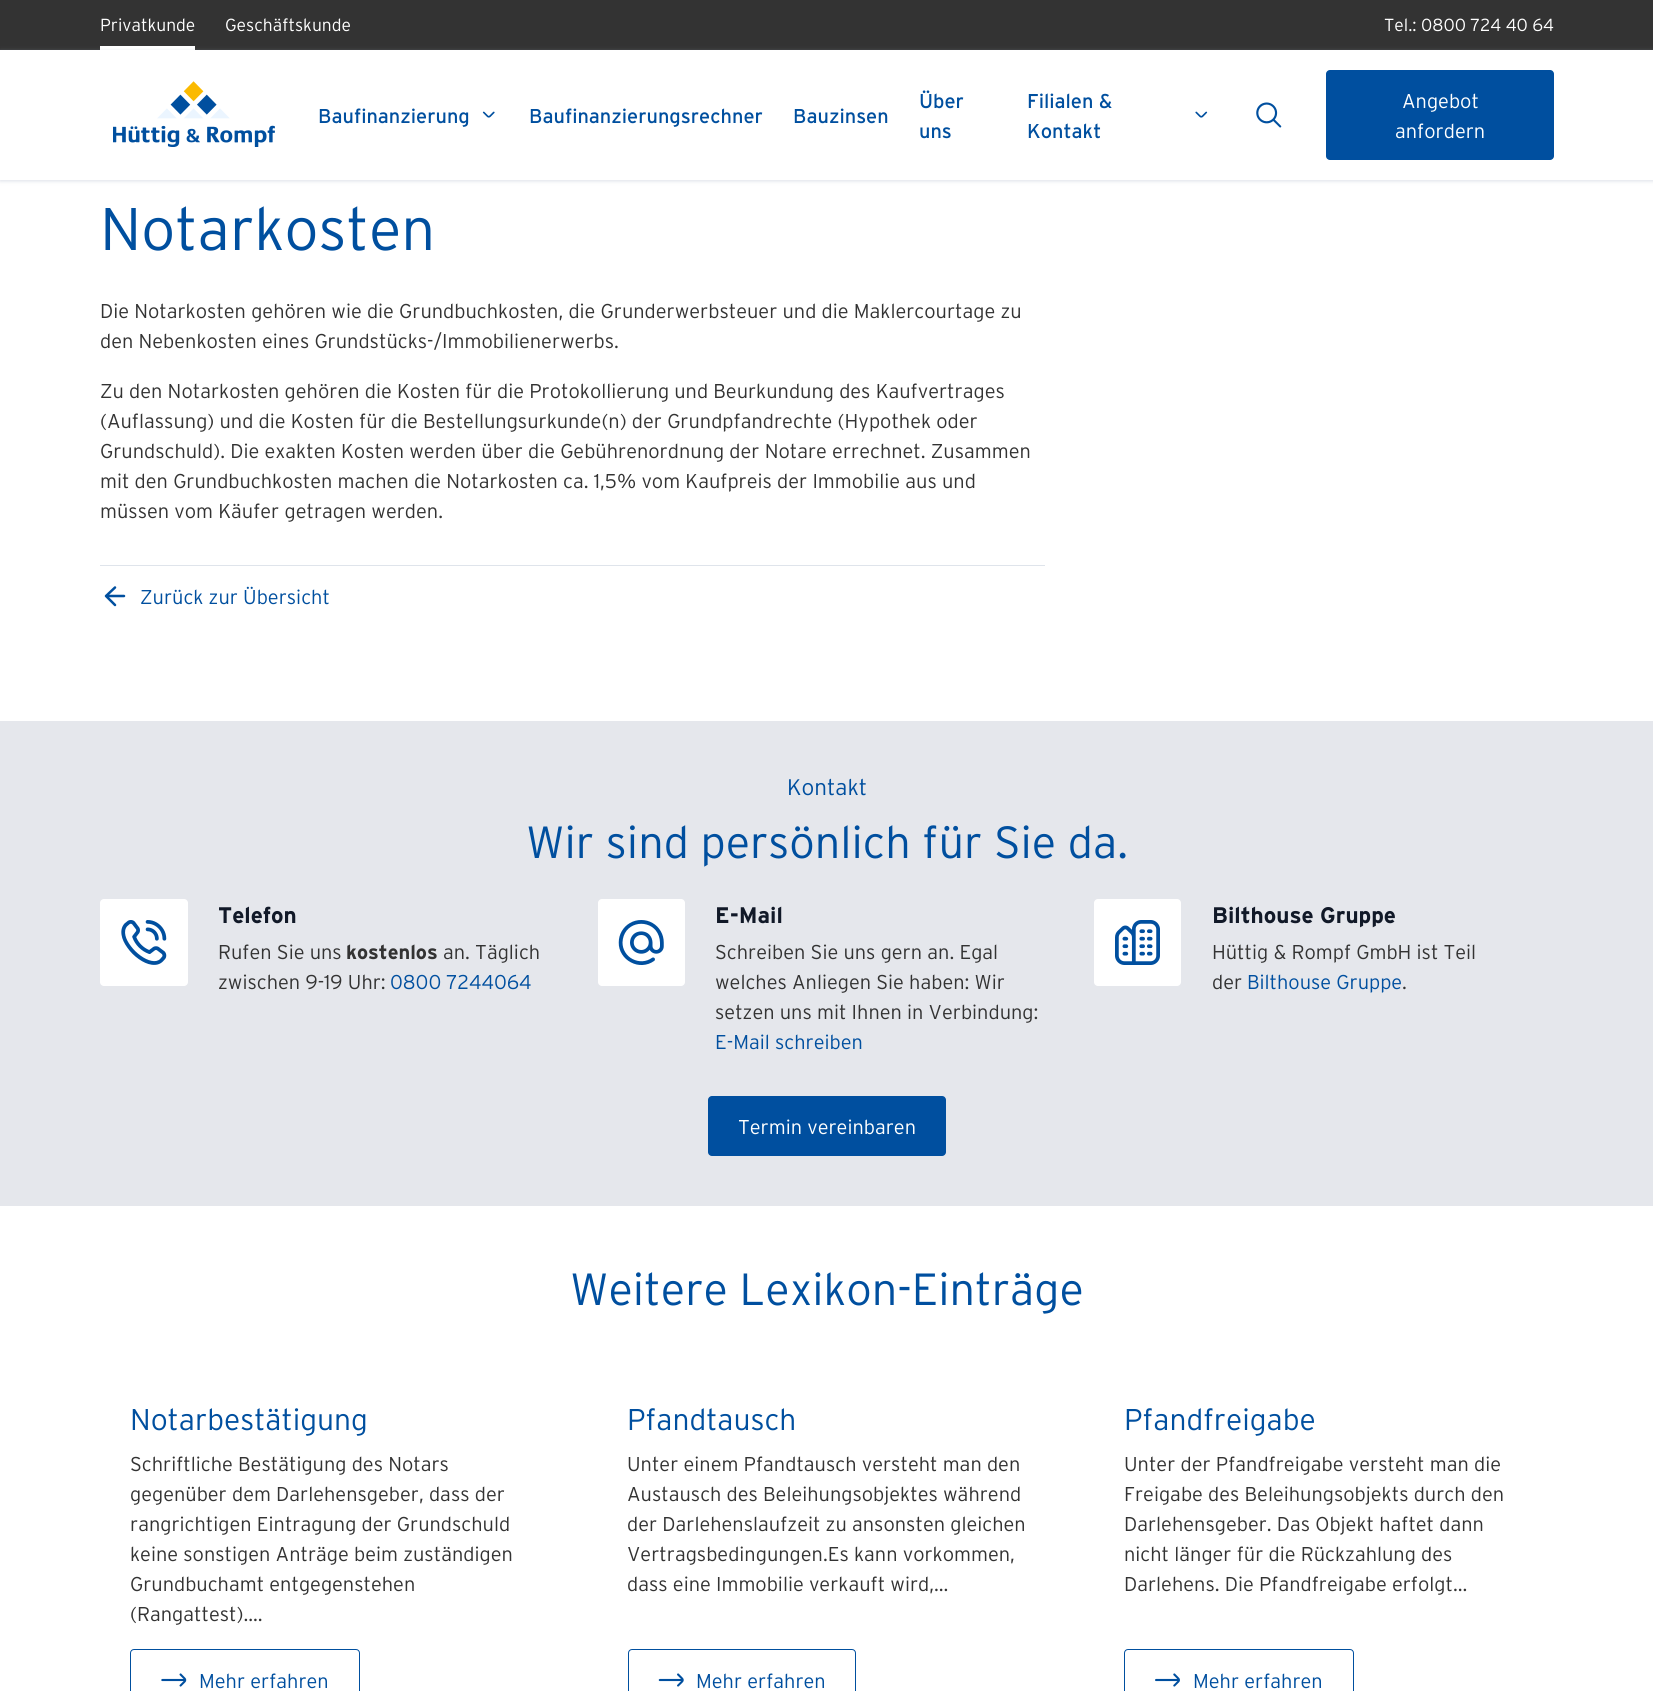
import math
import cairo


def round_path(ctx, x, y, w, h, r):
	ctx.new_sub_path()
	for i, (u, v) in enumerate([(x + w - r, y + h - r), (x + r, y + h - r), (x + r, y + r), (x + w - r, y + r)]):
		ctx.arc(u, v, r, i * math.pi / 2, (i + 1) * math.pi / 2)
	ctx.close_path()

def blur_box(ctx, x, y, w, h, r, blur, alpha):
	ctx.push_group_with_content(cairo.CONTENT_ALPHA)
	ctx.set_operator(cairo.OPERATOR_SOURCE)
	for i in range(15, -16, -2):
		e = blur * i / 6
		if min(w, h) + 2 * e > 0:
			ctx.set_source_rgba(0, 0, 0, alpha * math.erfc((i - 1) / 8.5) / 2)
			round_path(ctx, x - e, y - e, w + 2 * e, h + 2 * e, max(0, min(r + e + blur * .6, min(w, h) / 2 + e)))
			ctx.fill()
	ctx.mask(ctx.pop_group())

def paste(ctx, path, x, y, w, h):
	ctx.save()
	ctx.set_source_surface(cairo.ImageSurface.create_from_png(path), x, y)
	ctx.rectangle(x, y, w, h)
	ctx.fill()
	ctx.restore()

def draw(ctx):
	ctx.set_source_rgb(1, 1, 1)
	ctx.paint()
	ctx.set_source_rgb(0.2, 0.2, 0.2)
	ctx.rectangle(0, 0, 1653, 50)
	ctx.fill()
	ctx.select_font_face('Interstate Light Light')
	ctx.set_font_size(17.5)
	ctx.set_source_rgb(1, 1, 1)
	ctx.move_to(100, 31)
	ctx.show_text('Privatkunde')
	ctx.rectangle(100, 46, 95, 4)
	ctx.fill()
	ctx.move_to(225, 31)
	ctx.show_text('Geschäftskunde')
	ctx.move_to(1384, 31)
	ctx.show_text('Tel.: 0800 724 40 64')
	ctx.set_source_rgb(0.651, 0.686, 0.765)
	blur_box(ctx, 0, 51, 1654, 130, 0, 2, 0.4)
	ctx.set_source_rgb(1, 1, 1)
	ctx.rectangle(0, 50, 1653, 130)
	ctx.fill()
	paste(ctx, 'media/1.png', 113, 81, 162, 66)
	ctx.select_font_face('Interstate')
	ctx.set_font_size(20)
	ctx.set_source_rgb(0, 0.31, 0.624)
	ctx.move_to(318, 123)
	ctx.show_text('Baufinanzierung')
	paste(ctx, 'media/2.png', 482, 111, 13, 7)
	for x, y, s in [
		(529, 123, 'Baufinanzierungsrechner'),
		(793, 123, 'Bauzinsen'),
		(919, 108, 'Über'),
		(919, 138, 'uns'),
		(1027, 108, 'Filialen &'),
	]:
		ctx.move_to(x, y)
		ctx.show_text(s)
	paste(ctx, 'media/3.png', 1195, 111, 13, 7)
	ctx.move_to(1027, 138)
	ctx.show_text('Kontakt')
	paste(ctx, 'media/4.png', 1256, 102, 26, 26)
	round_path(ctx, 1326, 70, 228, 90, 4)
	ctx.fill()
	ctx.select_font_face('Interstate Light Light')
	ctx.set_source_rgb(1, 1, 1)
	ctx.move_to(1402, 108)
	ctx.show_text('Angebot')
	ctx.move_to(1395, 138)
	ctx.show_text('anfordern')
	ctx.set_font_size(60)
	ctx.set_source_rgb(0, 0.31, 0.624)
	ctx.move_to(100, 250)
	ctx.show_text('Notarkosten')
	ctx.set_font_size(20)
	ctx.set_source_rgb(0.2, 0.2, 0.2)
	for x, y, s in [
		(100, 318, 'Die Notarkosten gehören wie die Grundbuchkosten, die Grunderwerbsteuer und die Maklercourtage zu'),
		(100, 348, 'den Nebenkosten eines Grundstücks-/Immobilienerwerbs.'),
		(100, 398, 'Zu den Notarkosten gehören die Kosten für die Protokollierung und Beurkundung des Kaufvertrages'),
		(100, 428, '(Auflassung) und die Kosten für die Bestellungsurkunde(n) der Grundpfandrechte (Hypothek oder'),
		(100, 458, 'Grundschuld). Die exakten Kosten werden über die Gebührenordnung der Notare errechnet. Zusammen'),
		(100, 488, 'mit den Grundbuchkosten machen die Notarkosten ca. 1,5% vom Kaufpreis der Immobilie aus und'),
		(100, 518, 'müssen vom Käufer getragen werden.'),
	]:
		ctx.move_to(x, y)
		ctx.show_text(s)
	ctx.set_source_rgb(0.875, 0.894, 0.918)
	ctx.rectangle(100, 565, 945, 1)
	ctx.fill()
	ctx.new_path()
	ctx.move_to(124, 596)
	ctx.line_to(106, 596)
	ctx.move_to(106, 596)
	ctx.line_to(115, 605)
	ctx.move_to(106, 596)
	ctx.line_to(115, 587.5)
	ctx.set_source_rgb(0, 0.31, 0.624)
	ctx.set_line_width(2.5)
	ctx.set_line_cap(cairo.LINE_CAP_ROUND)
	ctx.set_line_join(cairo.LINE_JOIN_ROUND)
	ctx.stroke()
	ctx.move_to(140, 604)
	ctx.show_text('Zurück zur Übersicht')
	ctx.set_source_rgb(0.898, 0.906, 0.922)
	ctx.rectangle(0, 721, 1653, 485)
	ctx.fill()
	ctx.set_font_size(22.5)
	ctx.set_source_rgb(0, 0.31, 0.624)
	ctx.move_to(787, 795)
	ctx.show_text('Kontakt')
	ctx.set_font_size(45)
	ctx.move_to(526, 858)
	ctx.show_text('Wir sind persönlich für Sie da.')
	ctx.set_source_rgb(1, 1, 1)
	round_path(ctx, 100, 899, 88, 87, 4)
	ctx.fill()
	paste(ctx, 'media/5.png', 121, 920, 46, 45)
	ctx.select_font_face('Interstate', cairo.FONT_SLANT_NORMAL, cairo.FONT_WEIGHT_BOLD)
	ctx.set_font_size(22.5)
	ctx.set_source_rgb(0.067, 0.098, 0.157)
	ctx.move_to(218, 923)
	ctx.show_text('Telefon')
	ctx.select_font_face('Interstate Light Light')
	ctx.set_font_size(20)
	ctx.set_source_rgb(0.2, 0.2, 0.2)
	ctx.move_to(218, 959)
	ctx.show_text('Rufen Sie uns')
	ctx.select_font_face('Interstate', cairo.FONT_SLANT_NORMAL, cairo.FONT_WEIGHT_BOLD)
	ctx.move_to(346, 959)
	ctx.show_text('kostenlos')
	ctx.select_font_face('Interstate Light Light')
	ctx.move_to(443, 959)
	ctx.show_text('an. Täglich')
	ctx.move_to(218, 989)
	ctx.show_text('zwischen 9-19 Uhr:')
	ctx.set_source_rgb(0, 0.31, 0.624)
	ctx.move_to(390, 989)
	ctx.show_text('0800 7244064')
	ctx.set_source_rgb(1, 1, 1)
	round_path(ctx, 598, 899, 87, 87, 4)
	ctx.fill()
	paste(ctx, 'media/6.png', 618, 920, 46, 45)
	ctx.select_font_face('Interstate', cairo.FONT_SLANT_NORMAL, cairo.FONT_WEIGHT_BOLD)
	ctx.set_font_size(22.5)
	ctx.set_source_rgb(0.067, 0.098, 0.157)
	ctx.move_to(715, 923)
	ctx.show_text('E-Mail')
	ctx.select_font_face('Interstate Light Light')
	ctx.set_font_size(20)
	ctx.set_source_rgb(0.2, 0.2, 0.2)
	for x, y, s in [
		(715, 959, 'Schreiben Sie uns gern an. Egal'),
		(715, 989, 'welches Anliegen Sie haben: Wir'),
		(715, 1019, 'setzen uns mit Ihnen in Verbindung:'),
	]:
		ctx.move_to(x, y)
		ctx.show_text(s)
	ctx.set_source_rgb(0, 0.31, 0.624)
	ctx.move_to(715, 1049)
	ctx.show_text('E-Mail schreiben')
	ctx.set_source_rgb(1, 1, 1)
	round_path(ctx, 1094, 899, 87, 87, 4)
	ctx.fill()
	paste(ctx, 'media/7.png', 1115, 920, 45, 45)
	ctx.select_font_face('Interstate', cairo.FONT_SLANT_NORMAL, cairo.FONT_WEIGHT_BOLD)
	ctx.set_font_size(22.5)
	ctx.set_source_rgb(0.067, 0.098, 0.157)
	ctx.move_to(1212, 923)
	ctx.show_text('Bilthouse Gruppe')
	ctx.select_font_face('Interstate Light Light')
	ctx.set_font_size(20)
	ctx.set_source_rgb(0.2, 0.2, 0.2)
	ctx.move_to(1212, 959)
	ctx.show_text('Hüttig & Rompf GmbH ist Teil')
	ctx.move_to(1212, 989)
	ctx.show_text('der')
	ctx.set_source_rgb(0, 0.31, 0.624)
	ctx.move_to(1247, 989)
	ctx.show_text('Bilthouse Gruppe')
	ctx.set_source_rgb(0.2, 0.2, 0.2)
	ctx.move_to(1402, 989)
	ctx.show_text('.')
	ctx.set_source_rgb(0, 0.31, 0.624)
	round_path(ctx, 708, 1096, 238, 60, 4)
	ctx.fill()
	ctx.set_source_rgb(1, 1, 1)
	ctx.move_to(738, 1134)
	ctx.show_text('Termin vereinbaren')
	ctx.set_font_size(45)
	ctx.set_source_rgb(0, 0.31, 0.624)
	ctx.move_to(570, 1305)
	ctx.show_text('Weitere Lexikon-Einträge')
	ctx.set_font_size(30)
	ctx.move_to(130, 1430)
	ctx.show_text('Notarbestätigung')
	ctx.set_font_size(20)
	ctx.set_source_rgb(0.2, 0.2, 0.2)
	for x, y, s in [
		(130, 1471, 'Schriftliche Bestätigung des Notars'),
		(130, 1501, 'gegenüber dem Darlehensgeber, dass der'),
		(130, 1531, 'rangrichtigen Eintragung der Grundschuld'),
		(130, 1561, 'keine sonstigen Anträge beim zuständigen'),
		(130, 1591, 'Grundbuchamt entgegenstehen'),
		(130, 1621, '(Rangattest)....'),
	]:
		ctx.move_to(x, y)
		ctx.show_text(s)
	round_path(ctx, 130.5, 1649.5, 229, 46, 3.5)
	ctx.set_source_rgb(0, 0.31, 0.624)
	ctx.set_line_width(1)
	ctx.set_line_cap(cairo.LINE_CAP_BUTT)
	ctx.set_line_join(cairo.LINE_JOIN_MITER)
	ctx.stroke()
	paste(ctx, 'media/8.png', 161, 1673, 26, 14)
	ctx.move_to(199, 1688)
	ctx.show_text('Mehr erfahren')
	ctx.set_font_size(30)
	ctx.move_to(627, 1430)
	ctx.show_text('Pfandtausch')
	ctx.set_font_size(20)
	ctx.set_source_rgb(0.2, 0.2, 0.2)
	for x, y, s in [
		(627, 1471, 'Unter einem Pfandtausch versteht man den'),
		(627, 1501, 'Austausch des Beleihungsobjektes während'),
		(627, 1531, 'der Darlehenslaufzeit zu ansonsten gleichen'),
		(627, 1561, 'Vertragsbedingungen.Es kann vorkommen,'),
		(627, 1591, 'dass eine Immobilie verkauft wird,...'),
	]:
		ctx.move_to(x, y)
		ctx.show_text(s)
	round_path(ctx, 628.5, 1649.5, 227, 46, 3.5)
	ctx.set_source_rgb(0, 0.31, 0.624)
	ctx.stroke()
	paste(ctx, 'media/9.png', 658, 1673, 26, 14)
	ctx.move_to(696, 1688)
	ctx.show_text('Mehr erfahren')
	ctx.set_font_size(30)
	ctx.move_to(1124, 1430)
	ctx.show_text('Pfandfreigabe')
	ctx.set_font_size(20)
	ctx.set_source_rgb(0.2, 0.2, 0.2)
	for x, y, s in [
		(1124, 1471, 'Unter der Pfandfreigabe versteht man die'),
		(1124, 1501, 'Freigabe des Beleihungsobjekts durch den'),
		(1124, 1531, 'Darlehensgeber. Das Objekt haftet dann'),
		(1124, 1561, 'nicht länger für die Rückzahlung des'),
		(1124, 1591, 'Darlehens. Die Pfandfreigabe erfolgt...'),
	]:
		ctx.move_to(x, y)
		ctx.show_text(s)
	round_path(ctx, 1124.5, 1649.5, 229, 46, 3.5)
	ctx.set_source_rgb(0, 0.31, 0.624)
	ctx.stroke()
	paste(ctx, 'media/10.png', 1155, 1673, 25, 14)
	ctx.move_to(1193, 1688)
	ctx.show_text('Mehr erfahren')


surface = cairo.ImageSurface(cairo.FORMAT_RGB24, 1653, 1691)
ctx = cairo.Context(surface)
options = cairo.FontOptions()
options.set_hint_metrics(cairo.HINT_METRICS_OFF)
options.set_hint_style(cairo.HINT_STYLE_NONE)
ctx.set_font_options(options)
ctx.set_miter_limit(4)
draw(ctx)
surface.write_to_png('image.png')
